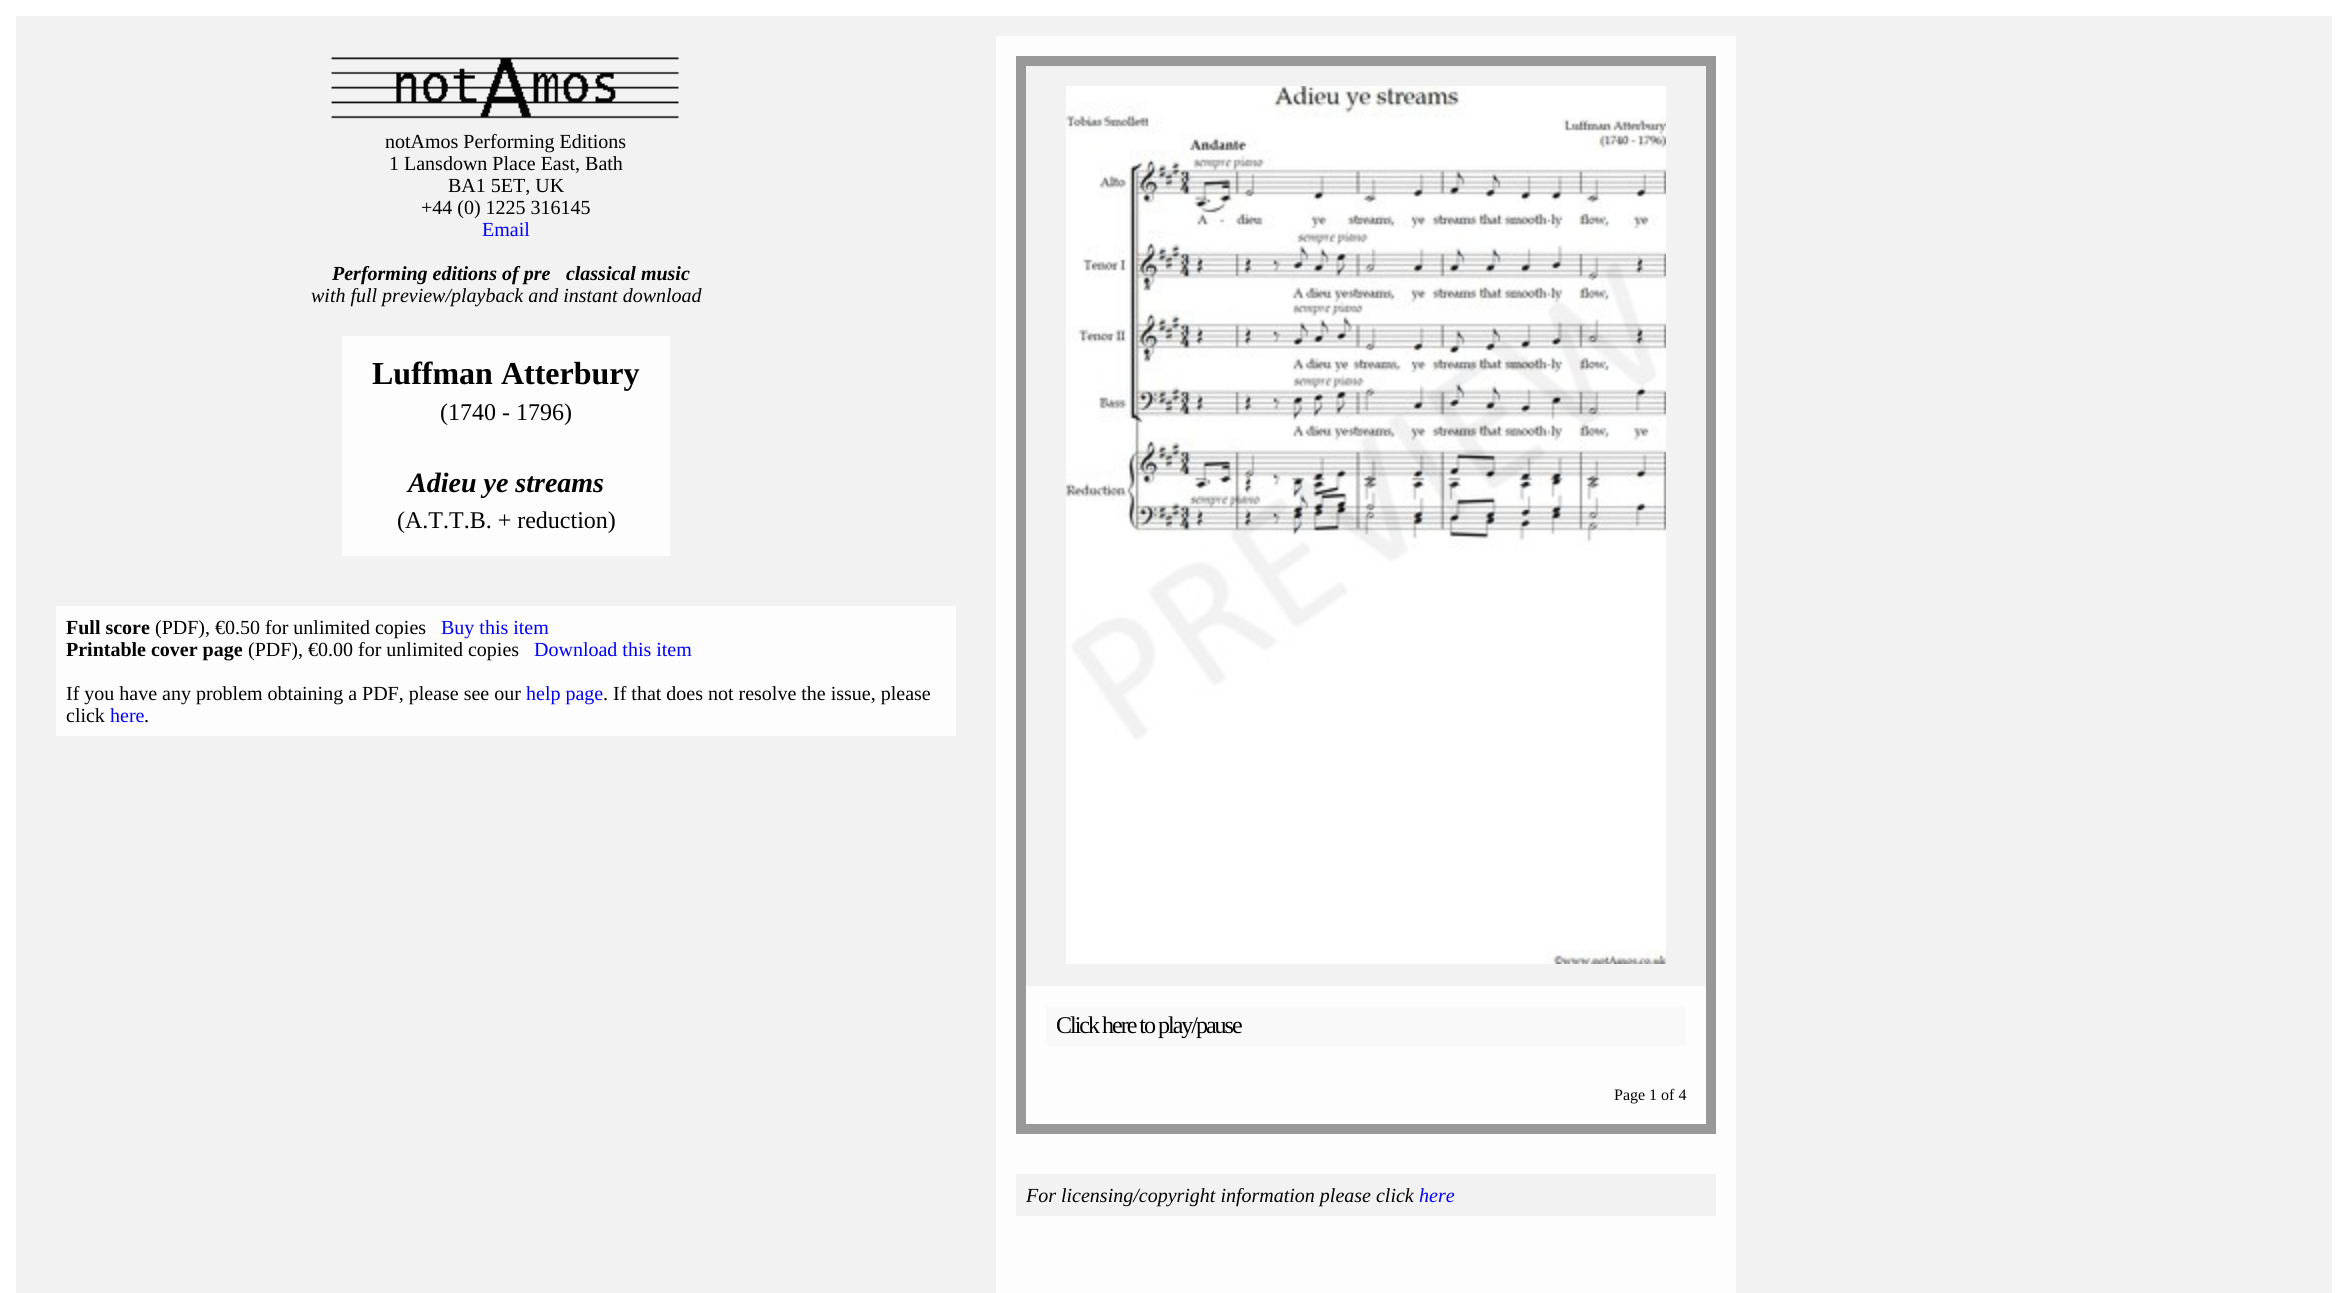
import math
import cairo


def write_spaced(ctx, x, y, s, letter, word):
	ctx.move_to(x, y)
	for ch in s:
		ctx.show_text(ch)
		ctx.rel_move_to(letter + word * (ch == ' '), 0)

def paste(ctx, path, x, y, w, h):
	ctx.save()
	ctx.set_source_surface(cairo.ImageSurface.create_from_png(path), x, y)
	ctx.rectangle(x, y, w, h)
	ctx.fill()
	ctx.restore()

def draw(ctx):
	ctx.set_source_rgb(1, 1, 1)
	ctx.paint()
	ctx.set_source_rgb(0.949, 0.949, 0.949)
	ctx.rectangle(16, 16, 2316, 1277)
	ctx.fill()
	paste(ctx, 'media/1.png', 331, 57, 348, 62)
	ctx.select_font_face('Liberation Serif')
	ctx.set_font_size(20)
	ctx.set_source_rgb(0, 0, 0)
	for x, y, s in [
		(385, 148, 'notAmos Performing Editions'),
		(389, 170, '1 Lansdown Place East, Bath'),
		(448, 192, 'BA1 5ET, UK'),
		(421, 214, '+44 (0) 1225 316145'),
	]:
		ctx.move_to(x, y)
		ctx.show_text(s)
	ctx.set_source_rgb(0, 0, 1)
	ctx.move_to(482, 236)
	ctx.show_text('Email')
	ctx.select_font_face('Liberation Serif', cairo.FONT_SLANT_ITALIC, cairo.FONT_WEIGHT_BOLD)
	ctx.set_source_rgb(0, 0, 0)
	ctx.move_to(332, 280)
	ctx.show_text('Performing editions of pre‑classical music')
	ctx.select_font_face('Liberation Serif', cairo.FONT_SLANT_ITALIC)
	ctx.move_to(311, 302)
	ctx.show_text('with full preview/playback and instant download')
	ctx.set_source_rgb(0.992, 0.992, 0.992)
	ctx.rectangle(342, 336, 328, 220)
	ctx.fill()
	ctx.select_font_face('Liberation Serif', cairo.FONT_SLANT_NORMAL, cairo.FONT_WEIGHT_BOLD)
	ctx.set_font_size(32)
	ctx.set_source_rgb(0, 0, 0)
	ctx.move_to(372, 384)
	ctx.show_text('Luffman Atterbury')
	ctx.select_font_face('Liberation Serif')
	ctx.set_font_size(24)
	ctx.move_to(440, 420)
	ctx.show_text('(1740 - 1796)')
	ctx.select_font_face('Liberation Serif', cairo.FONT_SLANT_ITALIC, cairo.FONT_WEIGHT_BOLD)
	ctx.set_font_size(28)
	ctx.move_to(408, 492)
	ctx.show_text('Adieu ye streams')
	ctx.select_font_face('Liberation Serif')
	ctx.set_font_size(24)
	ctx.move_to(397, 528)
	ctx.show_text('(A.T.T.B. + reduction)')
	ctx.set_source_rgb(0.992, 0.992, 0.992)
	ctx.rectangle(56, 606, 900, 130)
	ctx.fill()
	ctx.select_font_face('Liberation Serif', cairo.FONT_SLANT_NORMAL, cairo.FONT_WEIGHT_BOLD)
	ctx.set_font_size(20)
	ctx.set_source_rgb(0, 0, 0)
	ctx.move_to(66, 634)
	ctx.show_text('Full score')
	ctx.select_font_face('Liberation Serif')
	ctx.move_to(155, 634)
	ctx.show_text('(PDF), €0.50 for unlimited copies')
	ctx.set_source_rgb(0, 0, 1)
	ctx.move_to(441, 634)
	ctx.show_text('Buy this item')
	ctx.select_font_face('Liberation Serif', cairo.FONT_SLANT_NORMAL, cairo.FONT_WEIGHT_BOLD)
	ctx.set_source_rgb(0, 0, 0)
	ctx.move_to(66, 656)
	ctx.show_text('Printable cover page')
	ctx.select_font_face('Liberation Serif')
	ctx.move_to(248, 656)
	ctx.show_text('(PDF), €0.00 for unlimited copies')
	ctx.set_source_rgb(0, 0, 1)
	ctx.move_to(534, 656)
	ctx.show_text('Download this item')
	ctx.set_source_rgb(0, 0, 0)
	ctx.move_to(66, 700)
	ctx.show_text('If you have any problem obtaining a PDF, please see our')
	ctx.set_source_rgb(0, 0, 1)
	ctx.move_to(526, 700)
	ctx.show_text('help page')
	ctx.set_source_rgb(0, 0, 0)
	ctx.move_to(603, 700)
	ctx.show_text('. If that does not resolve the issue, please')
	ctx.move_to(66, 722)
	ctx.show_text('click')
	ctx.set_source_rgb(0, 0, 1)
	ctx.move_to(110, 722)
	ctx.show_text('here')
	ctx.set_source_rgb(0, 0, 0)
	ctx.move_to(144, 722)
	ctx.show_text('.')
	ctx.set_source_rgb(0.992, 0.992, 0.992)
	ctx.rectangle(996, 36, 740, 1257)
	ctx.fill()
	ctx.set_source_rgb(0.949, 0.949, 0.949)
	ctx.rectangle(1026, 66, 680, 920)
	ctx.fill()
	ctx.set_source_rgb(0.6, 0.6, 0.6)
	ctx.rectangle(1026, 56, 680, 10)
	ctx.rectangle(1706, 56, 10, 1068)
	ctx.rectangle(1016, 56, 10, 1078)
	ctx.fill()
	paste(ctx, 'media/2.png', 1066, 86, 600, 878)
	ctx.set_source_rgb(0.976, 0.976, 0.976)
	ctx.rectangle(1046, 1006, 640, 40)
	ctx.fill()
	ctx.set_font_size(24)
	ctx.set_source_rgb(0, 0, 0)
	write_spaced(ctx, 1056, 1033, 'Click here to play/pause', -2, 0)
	ctx.set_source_rgb(0.6, 0.6, 0.6)
	ctx.rectangle(1026, 1124, 690, 10)
	ctx.fill()
	ctx.set_font_size(16)
	ctx.set_source_rgb(0, 0, 0)
	ctx.move_to(1614, 1100)
	ctx.show_text('Page 1 of 4')
	ctx.set_source_rgb(0.949, 0.949, 0.949)
	ctx.rectangle(1016, 1174, 700, 42)
	ctx.fill()
	ctx.select_font_face('Liberation Serif', cairo.FONT_SLANT_ITALIC)
	ctx.set_font_size(20)
	ctx.set_source_rgb(0, 0, 0)
	ctx.move_to(1026, 1202)
	ctx.show_text('For licensing/copyright information please click')
	ctx.set_source_rgb(0, 0, 1)
	ctx.move_to(1419, 1202)
	ctx.show_text('here')


surface = cairo.ImageSurface(cairo.FORMAT_RGB24, 2347, 1293)
ctx = cairo.Context(surface)
options = cairo.FontOptions()
options.set_hint_metrics(cairo.HINT_METRICS_OFF)
options.set_hint_style(cairo.HINT_STYLE_NONE)
ctx.set_font_options(options)
ctx.set_miter_limit(4)
draw(ctx)
surface.write_to_png('image.png')
